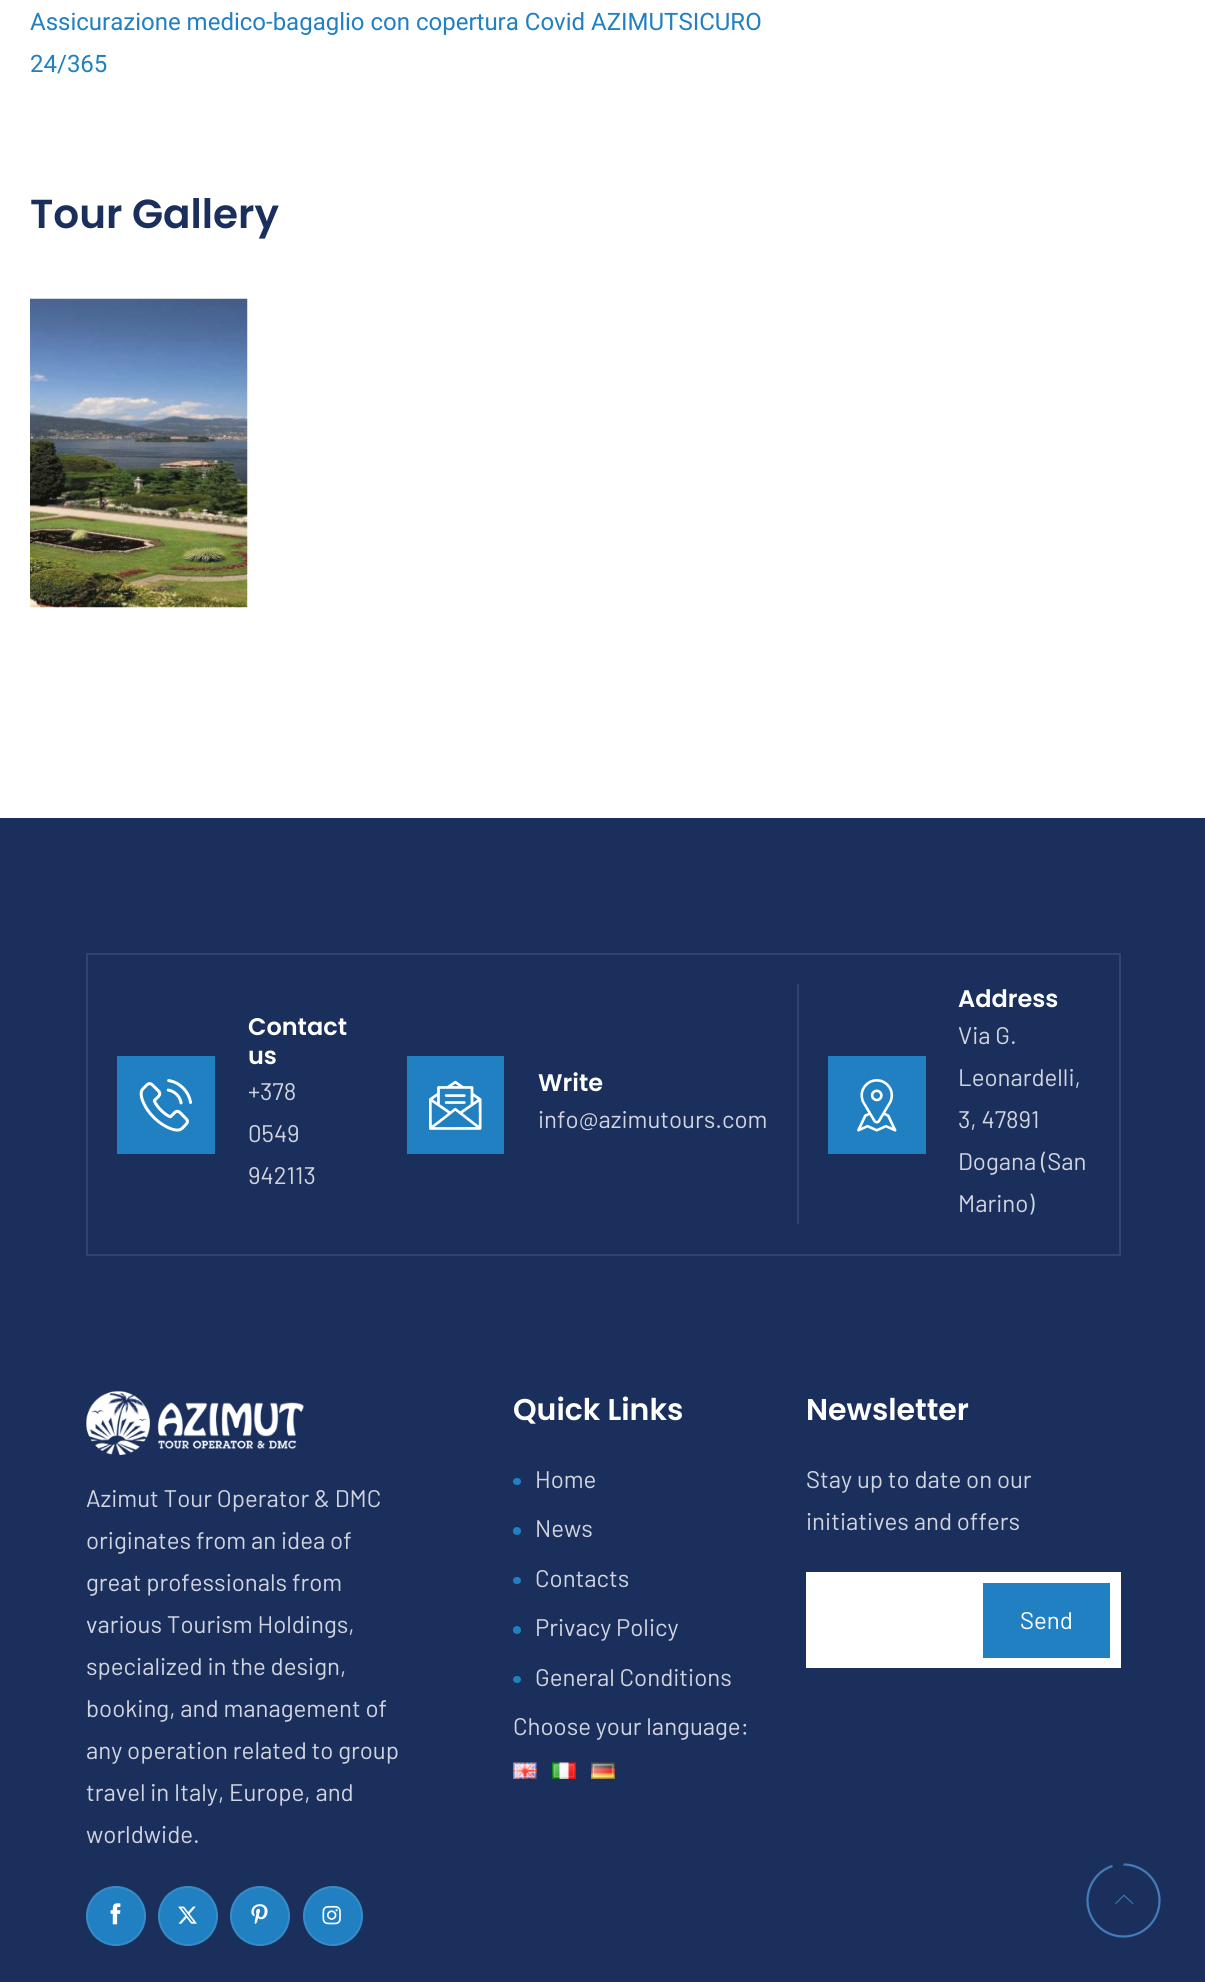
import math
import cairo


def round_path(ctx, x, y, w, h, r):
	ctx.new_sub_path()
	for i, (u, v) in enumerate([(x + w - r, y + h - r), (x + r, y + h - r), (x + r, y + r), (x + w - r, y + r)]):
		ctx.arc(u, v, r, i * math.pi / 2, (i + 1) * math.pi / 2)
	ctx.close_path()

def paste(ctx, path, x, y, w, h):
	ctx.save()
	ctx.set_source_surface(cairo.ImageSurface.create_from_png(path), x, y)
	ctx.rectangle(x, y, w, h)
	ctx.fill()
	ctx.restore()

def draw(ctx):
	ctx.set_source_rgb(1, 1, 1)
	ctx.paint()
	ctx.select_font_face('Roboto')
	ctx.set_font_size(24)
	ctx.set_source_rgb(0.125, 0.502, 0.757)
	ctx.move_to(30, 30)
	ctx.show_text('Assicurazione medico-bagaglio con copertura Covid AZIMUTSICURO')
	ctx.move_to(30, 72)
	ctx.show_text('24/365')
	ctx.select_font_face('Poppins SemiBold')
	ctx.set_font_size(40.5)
	ctx.set_source_rgb(0.106, 0.184, 0.365)
	ctx.move_to(30, 228)
	ctx.show_text('Tour Gallery')
	paste(ctx, 'media/1.png', 30, 298, 218, 310)
	ctx.rectangle(0, 818, 1205, 1164)
	ctx.fill()
	ctx.rectangle(87, 954, 1033, 301)
	ctx.set_source_rgb(0.196, 0.267, 0.427)
	ctx.stroke()
	ctx.set_source_rgb(0.125, 0.502, 0.757)
	ctx.rectangle(117, 1056, 98, 98)
	ctx.fill()
	paste(ctx, 'media/2.png', 139, 1079, 53, 53)
	ctx.set_font_size(24)
	ctx.set_source_rgb(1, 1, 1)
	ctx.move_to(248, 1035)
	ctx.show_text('Contact')
	ctx.move_to(248, 1064)
	ctx.show_text('us')
	ctx.select_font_face('Barlow')
	ctx.set_source_rgb(0.82, 0.835, 0.875)
	for x, y, s in [
		(248, 1100, '+378'),
		(248, 1142, '0549'),
		(248, 1184, '942113'),
	]:
		ctx.move_to(x, y)
		ctx.show_text(s)
	ctx.set_source_rgb(0.125, 0.502, 0.757)
	ctx.rectangle(407, 1056, 97, 98)
	ctx.fill()
	paste(ctx, 'media/3.png', 429, 1080, 53, 50)
	ctx.select_font_face('Poppins SemiBold')
	ctx.set_source_rgb(1, 1, 1)
	ctx.move_to(538, 1091)
	ctx.show_text('Write')
	ctx.select_font_face('Barlow')
	ctx.set_source_rgb(0.82, 0.835, 0.875)
	ctx.move_to(538, 1128)
	ctx.show_text('info@azimutours.com')
	ctx.set_source_rgb(0.196, 0.267, 0.427)
	ctx.rectangle(797, 984, 2, 240)
	ctx.fill()
	ctx.set_source_rgb(0.125, 0.502, 0.757)
	ctx.rectangle(828, 1056, 98, 98)
	ctx.fill()
	paste(ctx, 'media/4.png', 857, 1079, 40, 53)
	ctx.select_font_face('Poppins SemiBold')
	ctx.set_source_rgb(1, 1, 1)
	ctx.move_to(958, 1007)
	ctx.show_text('Address')
	ctx.select_font_face('Barlow')
	ctx.set_source_rgb(0.82, 0.835, 0.875)
	for x, y, s in [
		(958, 1044, 'Via G.'),
		(958, 1086, 'Leonardelli,'),
		(958, 1128, '3, 47891'),
		(958, 1170, 'Dogana (San'),
		(958, 1212, 'Marino)'),
	]:
		ctx.move_to(x, y)
		ctx.show_text(s)
	paste(ctx, 'media/5.png', 86, 1391, 218, 64)
	for x, y, s in [
		(86, 1507, 'Azimut Tour Operator & DMC'),
		(86, 1549, 'originates from an idea of'),
		(86, 1591, 'great professionals from'),
		(86, 1633, 'various Tourism Holdings,'),
		(86, 1675, 'specialized in the design,'),
		(86, 1717, 'booking, and management of'),
		(86, 1759, 'any operation related to group'),
		(86, 1801, 'travel in Italy, Europe, and'),
		(86, 1843, 'worldwide.'),
	]:
		ctx.move_to(x, y)
		ctx.show_text(s)
	ctx.set_source_rgb(0.125, 0.502, 0.757)
	ctx.new_path()
	ctx.arc(116, 1916, 30, 0, 2 * math.pi)
	ctx.fill()
	ctx.arc(116, 1916, 29, 0, 2 * math.pi)
	ctx.set_source_rgba(1, 1, 1, 0.1)
	ctx.stroke()
	paste(ctx, 'media/6.png', 110, 1903, 11, 22)
	ctx.set_source_rgb(0.125, 0.502, 0.757)
	ctx.arc(188, 1916, 30, 0, 2 * math.pi)
	ctx.fill()
	ctx.arc(188, 1916, 29, 0, 2 * math.pi)
	ctx.set_source_rgba(1, 1, 1, 0.1)
	ctx.stroke()
	paste(ctx, 'media/7.png', 178, 1906, 19, 18)
	ctx.set_source_rgb(0.125, 0.502, 0.757)
	ctx.arc(260, 1916, 30, 0, 2 * math.pi)
	ctx.fill()
	ctx.arc(260, 1916, 29, 0, 2 * math.pi)
	ctx.set_source_rgba(1, 1, 1, 0.1)
	ctx.stroke()
	paste(ctx, 'media/8.png', 251, 1904, 17, 20)
	ctx.set_source_rgb(0.125, 0.502, 0.757)
	ctx.arc(333, 1916, 30, 0, 2 * math.pi)
	ctx.fill()
	ctx.arc(333, 1916, 29, 0, 2 * math.pi)
	ctx.set_source_rgba(1, 1, 1, 0.1)
	ctx.stroke()
	paste(ctx, 'media/9.png', 322, 1905, 19, 20)
	ctx.select_font_face('Poppins SemiBold')
	ctx.set_font_size(30)
	ctx.set_source_rgb(1, 1, 1)
	ctx.move_to(513, 1420)
	ctx.show_text('Quick Links')
	ctx.set_source_rgb(0.125, 0.502, 0.757)
	round_path(ctx, 513, 1478, 8, 7, 3.5)
	ctx.fill()
	ctx.select_font_face('Barlow')
	ctx.set_font_size(24)
	ctx.set_source_rgb(0.82, 0.835, 0.875)
	ctx.move_to(535, 1488)
	ctx.show_text('Home')
	ctx.set_source_rgb(0.125, 0.502, 0.757)
	ctx.new_path()
	ctx.arc(517, 1531, 4, 0, 2 * math.pi)
	ctx.fill()
	ctx.set_source_rgb(0.82, 0.835, 0.875)
	ctx.move_to(535, 1537)
	ctx.show_text('News')
	ctx.set_source_rgb(0.125, 0.502, 0.757)
	round_path(ctx, 513, 1577, 8, 7, 3.5)
	ctx.fill()
	ctx.set_source_rgb(0.82, 0.835, 0.875)
	ctx.move_to(535, 1587)
	ctx.show_text('Contacts')
	ctx.set_source_rgb(0.125, 0.502, 0.757)
	ctx.new_path()
	ctx.arc(517, 1630, 4, 0, 2 * math.pi)
	ctx.fill()
	ctx.set_source_rgb(0.82, 0.835, 0.875)
	ctx.move_to(535, 1636)
	ctx.show_text('Privacy Policy')
	ctx.set_source_rgb(0.125, 0.502, 0.757)
	round_path(ctx, 513, 1676, 8, 7, 3.5)
	ctx.fill()
	ctx.set_source_rgb(0.82, 0.835, 0.875)
	ctx.move_to(535, 1686)
	ctx.show_text('General Conditions')
	ctx.move_to(513, 1735)
	ctx.show_text('Choose your language:')
	paste(ctx, 'media/10.png', 513, 1762, 24, 17)
	paste(ctx, 'media/11.png', 552, 1762, 24, 17)
	paste(ctx, 'media/12.png', 591, 1762, 24, 17)
	ctx.select_font_face('Poppins SemiBold')
	ctx.set_font_size(30)
	ctx.set_source_rgb(1, 1, 1)
	ctx.move_to(806, 1420)
	ctx.show_text('Newsletter')
	ctx.select_font_face('Barlow')
	ctx.set_font_size(24)
	ctx.set_source_rgb(0.82, 0.835, 0.875)
	ctx.move_to(806, 1488)
	ctx.show_text('Stay up to date on our')
	ctx.move_to(806, 1530)
	ctx.show_text('initiatives and offers')
	ctx.set_source_rgb(1, 1, 1)
	ctx.rectangle(806, 1572, 315, 96)
	ctx.fill()
	ctx.set_source_rgb(0.125, 0.502, 0.757)
	ctx.rectangle(983, 1583, 127, 75)
	ctx.fill()
	ctx.set_source_rgb(1, 1, 1)
	ctx.move_to(1020, 1629)
	ctx.show_text('Send')
	ctx.new_path()
	ctx.move_to(1123.5, 1864.5)
	ctx.curve_to(1143.5, 1864.5, 1159.5, 1880.5, 1159.5, 1900.5)
	ctx.curve_to(1159.5, 1920.5, 1143.5, 1936.5, 1123.5, 1936.5)
	ctx.curve_to(1103.5, 1936.5, 1087.5, 1920.5, 1087.5, 1900.5)
	ctx.curve_to(1087.5, 1884.5, 1098, 1870.5, 1112.5, 1866)
	ctx.set_source_rgb(0.259, 0.486, 0.729)
	ctx.set_line_width(2.2)
	ctx.stroke()
	ctx.new_path()
	ctx.move_to(1133.5, 1903.5)
	ctx.line_to(1132.5, 1904)
	ctx.line_to(1124, 1896)
	ctx.line_to(1116, 1904)
	ctx.line_to(1115, 1903.5)
	ctx.line_to(1124, 1894.5)
	ctx.close_path()
	ctx.fill()


surface = cairo.ImageSurface(cairo.FORMAT_RGB24, 1205, 1982)
ctx = cairo.Context(surface)
options = cairo.FontOptions()
options.set_hint_metrics(cairo.HINT_METRICS_OFF)
options.set_hint_style(cairo.HINT_STYLE_NONE)
ctx.set_font_options(options)
ctx.set_miter_limit(4)
draw(ctx)
surface.write_to_png('image.png')
